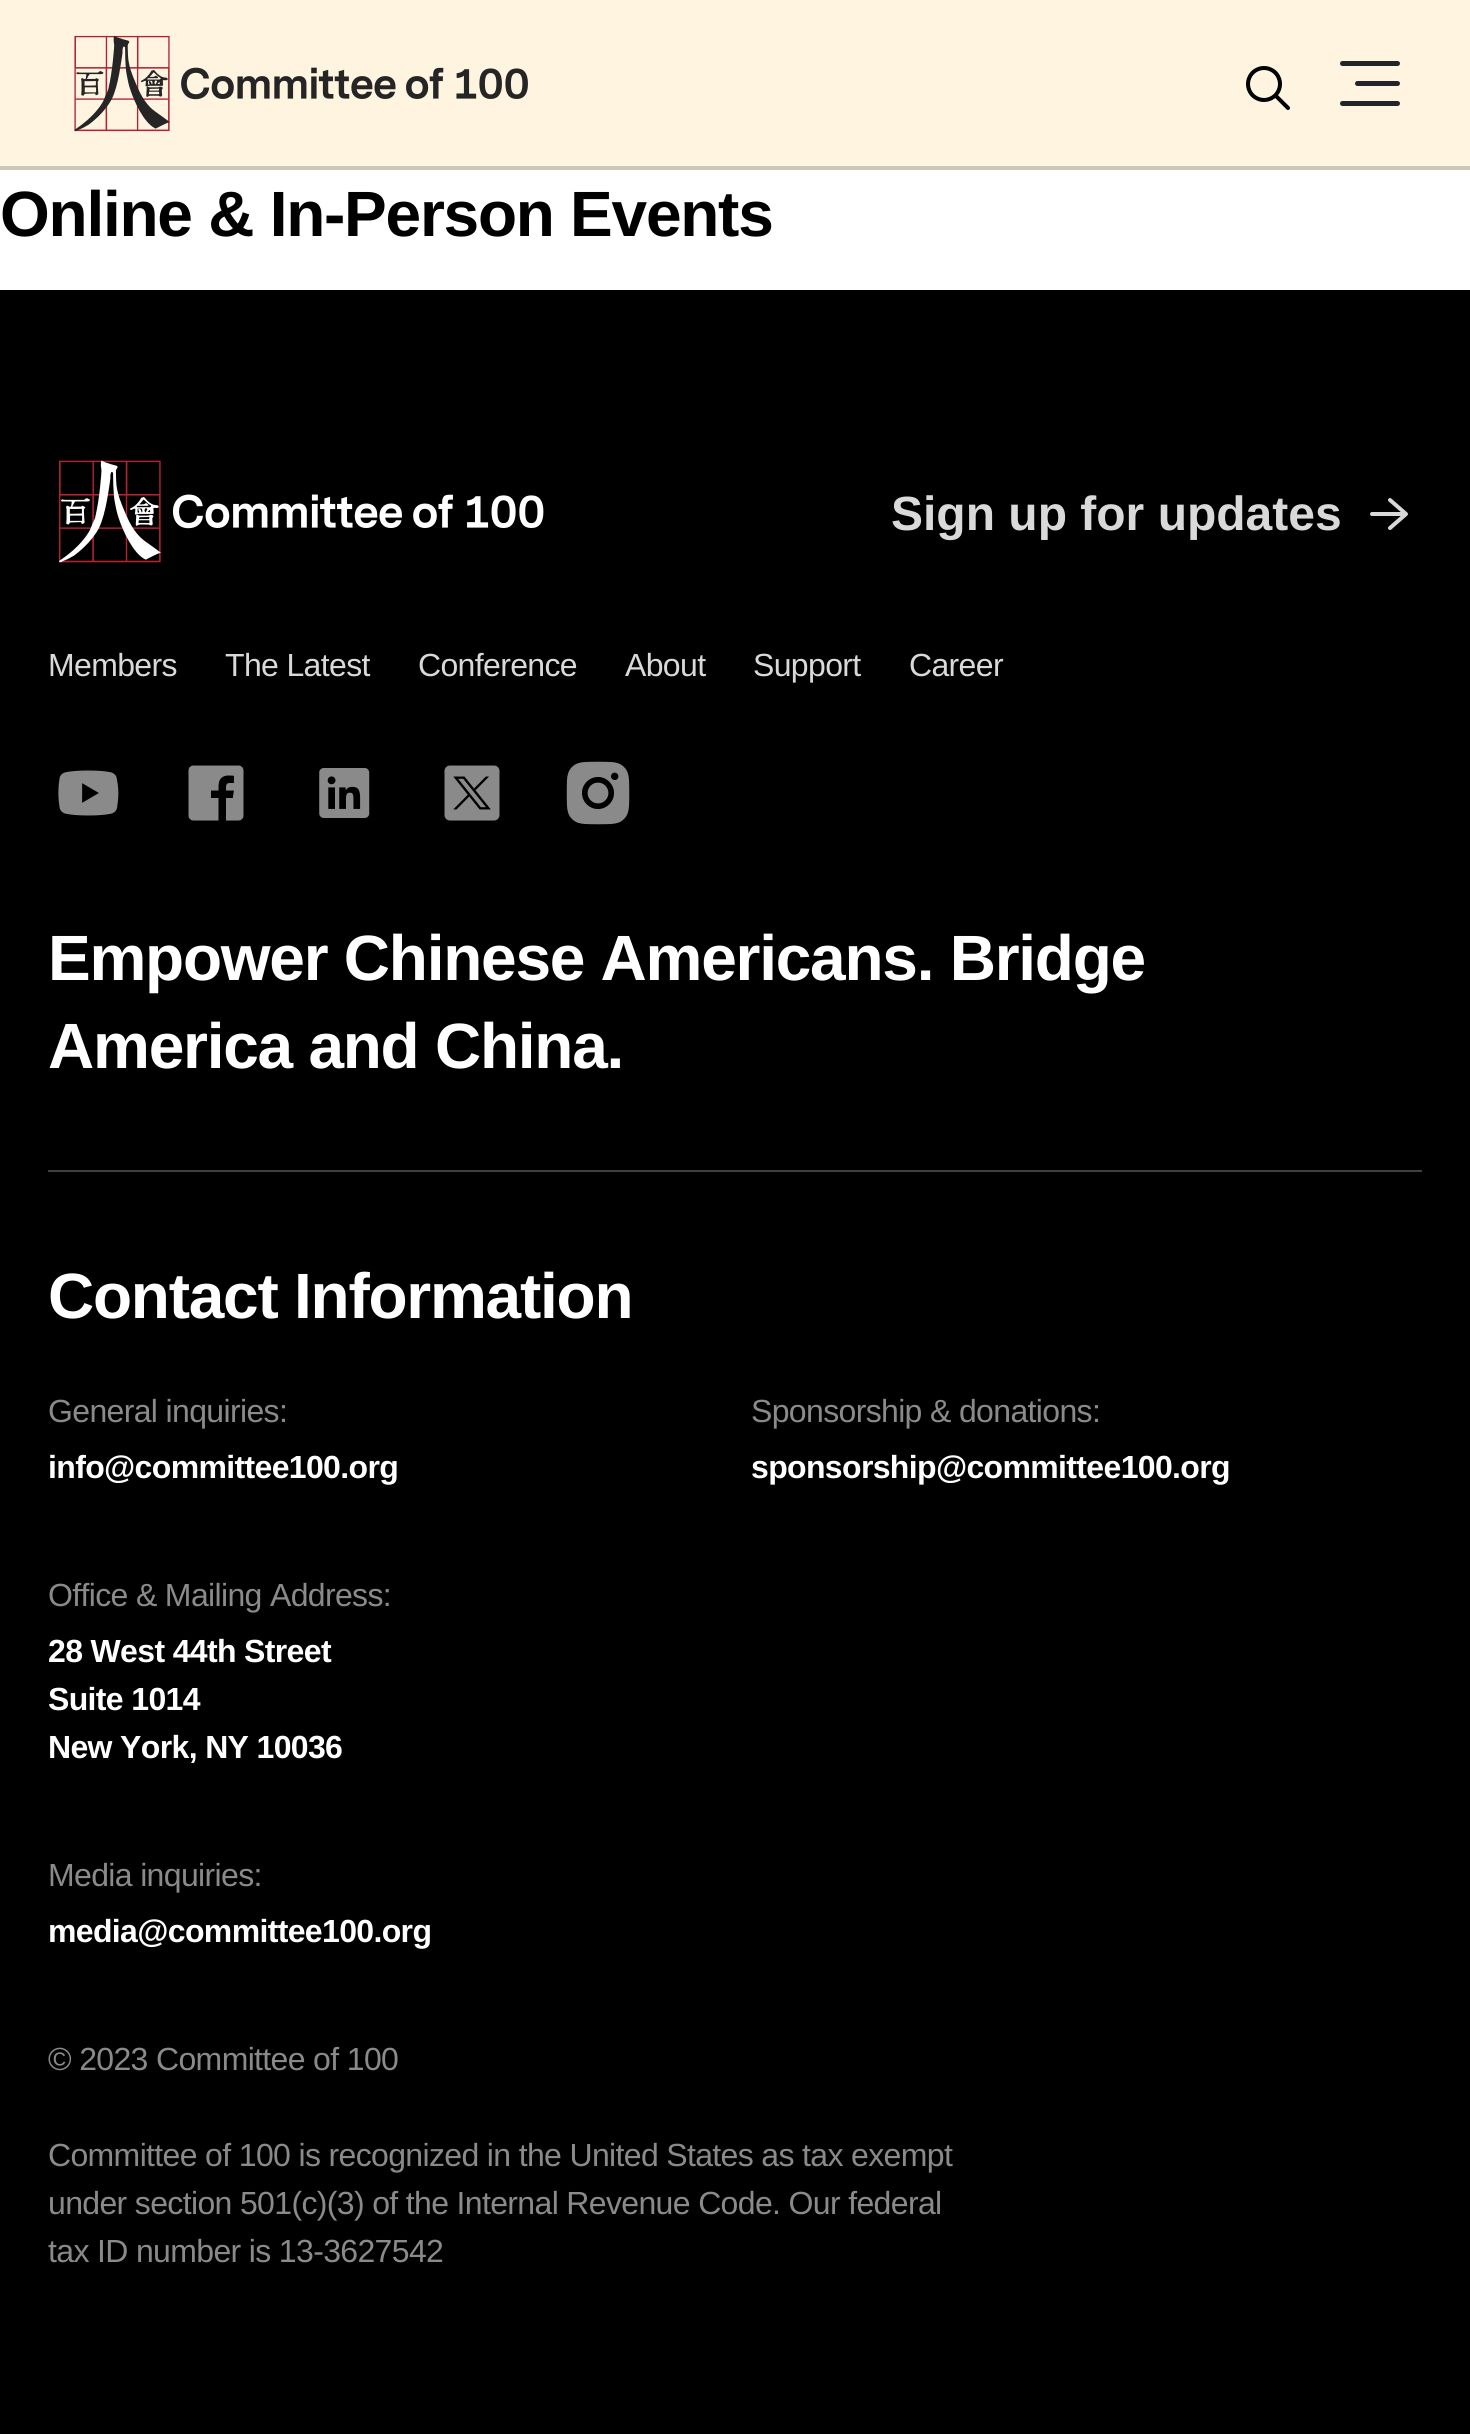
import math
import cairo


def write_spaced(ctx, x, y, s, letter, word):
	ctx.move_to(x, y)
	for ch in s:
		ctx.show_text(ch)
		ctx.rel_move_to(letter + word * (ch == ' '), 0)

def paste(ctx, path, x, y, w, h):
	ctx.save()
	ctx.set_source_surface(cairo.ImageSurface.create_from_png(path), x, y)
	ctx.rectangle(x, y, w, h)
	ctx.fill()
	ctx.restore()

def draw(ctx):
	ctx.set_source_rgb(1, 1, 1)
	ctx.paint()
	ctx.set_source_rgb(1, 0.957, 0.878)
	ctx.rectangle(0, 0, 1470, 166)
	ctx.fill()
	ctx.set_source_rgb(0.808, 0.776, 0.725)
	ctx.rectangle(0, 166, 1470, 4)
	ctx.fill()
	paste(ctx, 'media/1.png', 74, 35, 454, 97)
	paste(ctx, 'media/2.png', 1246, 66, 44, 44)
	paste(ctx, 'media/3.png', 1340, 61, 60, 45)
	ctx.select_font_face('Liberation Sans', cairo.FONT_SLANT_NORMAL, cairo.FONT_WEIGHT_BOLD)
	ctx.set_font_size(64)
	ctx.set_source_rgb(0, 0, 0)
	write_spaced(ctx, 0, 236, 'Online & In-Person Events', -1.25, 0)
	ctx.rectangle(0, 290, 1470, 2144)
	ctx.fill()
	paste(ctx, 'media/4.png', 59, 460, 485, 103)
	ctx.set_font_size(48)
	ctx.set_source_rgb(0.851, 0.851, 0.851)
	ctx.move_to(891, 530)
	ctx.show_text('Sign up for updates')
	paste(ctx, 'media/5.png', 1370, 498, 38, 32)
	ctx.select_font_face('Liberation Sans')
	ctx.set_font_size(32)
	for x, y, s in [
		(48, 676, 'Members'),
		(225, 676, 'The Latest'),
		(418, 676, 'Conference'),
		(625, 676, 'About'),
		(753, 676, 'Support'),
		(909, 676, 'Career'),
	]:
		write_spaced(ctx, x, y, s, -0.65, 0)
	paste(ctx, 'media/6.png', 58, 770, 61, 46)
	paste(ctx, 'media/7.png', 188, 765, 56, 56)
	paste(ctx, 'media/8.png', 319, 768, 51, 50)
	paste(ctx, 'media/9.png', 444, 765, 56, 56)
	paste(ctx, 'media/10.png', 566, 761, 64, 64)
	ctx.select_font_face('Liberation Sans', cairo.FONT_SLANT_NORMAL, cairo.FONT_WEIGHT_BOLD)
	ctx.set_font_size(64)
	ctx.set_source_rgb(1, 1, 1)
	write_spaced(ctx, 48, 980, 'Empower Chinese Americans. Bridge', -1.25, 0)
	write_spaced(ctx, 48, 1068, 'America and China.', -1.25, 0)
	ctx.set_source_rgb(0.251, 0.251, 0.251)
	ctx.rectangle(48, 1170, 1374, 2)
	ctx.fill()
	ctx.set_source_rgb(1, 1, 1)
	write_spaced(ctx, 48, 1318, 'Contact Information', -1.25, 0)
	ctx.select_font_face('Liberation Sans')
	ctx.set_font_size(32)
	ctx.set_source_rgb(0.541, 0.541, 0.541)
	write_spaced(ctx, 48, 1422, 'General inquiries:', -0.65, 0)
	ctx.select_font_face('Liberation Sans', cairo.FONT_SLANT_NORMAL, cairo.FONT_WEIGHT_BOLD)
	ctx.set_source_rgb(1, 1, 1)
	write_spaced(ctx, 48, 1478, 'info@committee100.org', -0.65, 0)
	ctx.select_font_face('Liberation Sans')
	ctx.set_source_rgb(0.541, 0.541, 0.541)
	write_spaced(ctx, 48, 1606, 'Office & Mailing Address:', -0.65, 0)
	ctx.select_font_face('Liberation Sans', cairo.FONT_SLANT_NORMAL, cairo.FONT_WEIGHT_BOLD)
	ctx.set_source_rgb(1, 1, 1)
	for x, y, s in [
		(48, 1662, '28 West 44th Street'),
		(48, 1710, 'Suite 1014'),
		(48, 1758, 'New York, NY 10036'),
	]:
		write_spaced(ctx, x, y, s, -0.65, 0)
	ctx.select_font_face('Liberation Sans')
	ctx.set_source_rgb(0.541, 0.541, 0.541)
	write_spaced(ctx, 751, 1422, 'Sponsorship & donations:', -0.65, 0)
	ctx.select_font_face('Liberation Sans', cairo.FONT_SLANT_NORMAL, cairo.FONT_WEIGHT_BOLD)
	ctx.set_source_rgb(1, 1, 1)
	write_spaced(ctx, 751, 1478, 'sponsorship@committee100.org', -0.65, 0)
	ctx.select_font_face('Liberation Sans')
	ctx.set_source_rgb(0.541, 0.541, 0.541)
	write_spaced(ctx, 48, 1886, 'Media inquiries:', -0.65, 0)
	ctx.select_font_face('Liberation Sans', cairo.FONT_SLANT_NORMAL, cairo.FONT_WEIGHT_BOLD)
	ctx.set_source_rgb(1, 1, 1)
	write_spaced(ctx, 48, 1942, 'media@committee100.org', -0.65, 0)
	ctx.select_font_face('Liberation Sans')
	ctx.set_source_rgb(0.541, 0.541, 0.541)
	for x, y, s in [
		(48, 2070, '© 2023 Committee of 100'),
		(48, 2166, 'Committee of 100 is recognized in the United States as tax exempt'),
		(48, 2214, 'under section 501(c)(3) of the Internal Revenue Code. Our federal'),
		(48, 2262, 'tax ID number is 13-3627542'),
	]:
		write_spaced(ctx, x, y, s, -0.65, 0)


surface = cairo.ImageSurface(cairo.FORMAT_RGB24, 1470, 2434)
ctx = cairo.Context(surface)
options = cairo.FontOptions()
options.set_hint_metrics(cairo.HINT_METRICS_OFF)
options.set_hint_style(cairo.HINT_STYLE_NONE)
ctx.set_font_options(options)
ctx.set_miter_limit(4)
draw(ctx)
surface.write_to_png('image.png')
